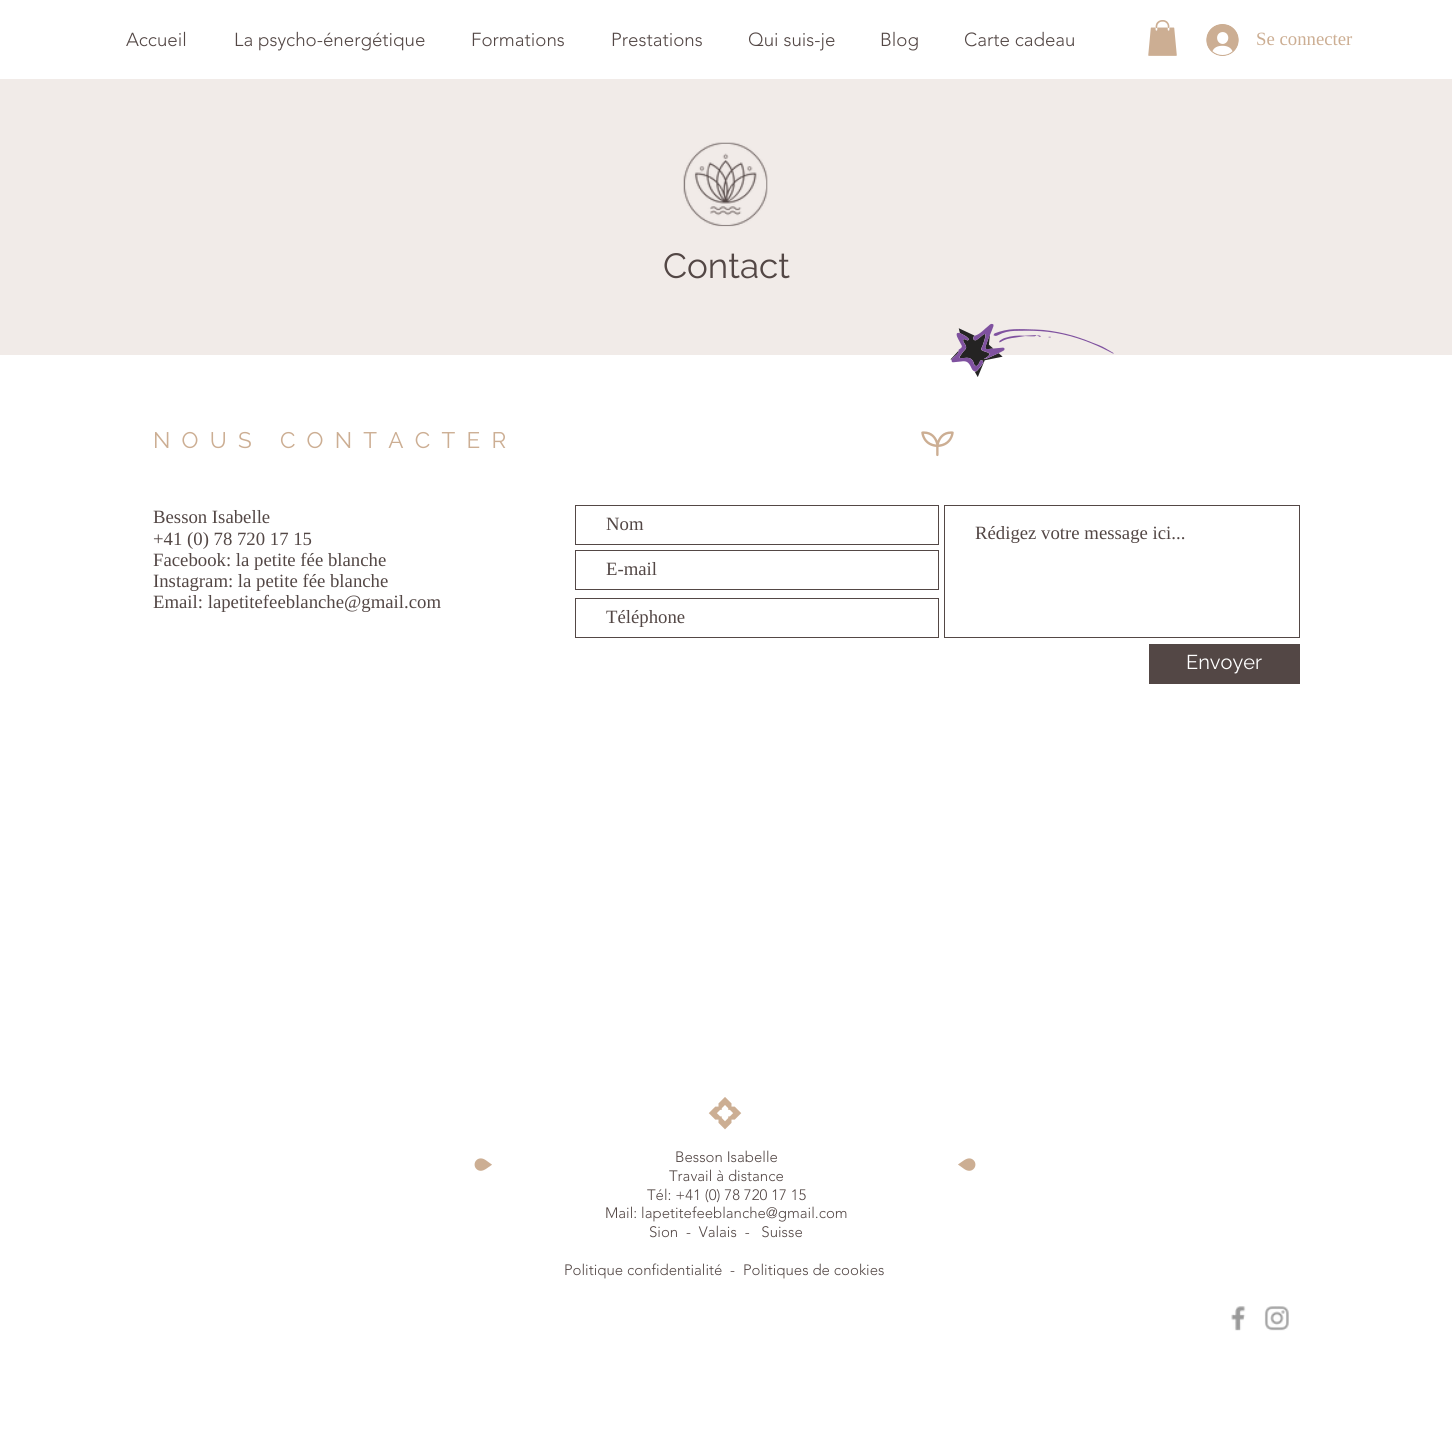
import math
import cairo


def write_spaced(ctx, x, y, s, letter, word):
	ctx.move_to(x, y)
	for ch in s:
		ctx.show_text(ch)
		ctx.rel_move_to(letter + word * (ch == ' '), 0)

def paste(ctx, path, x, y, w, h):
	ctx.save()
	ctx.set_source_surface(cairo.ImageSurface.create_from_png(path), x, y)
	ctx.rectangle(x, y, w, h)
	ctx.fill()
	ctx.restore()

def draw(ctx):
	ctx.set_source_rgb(1, 1, 1)
	ctx.paint()
	ctx.select_font_face('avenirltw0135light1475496 Light')
	ctx.set_font_size(18.75)
	ctx.set_source_rgb(0.325, 0.278, 0.271)
	for x, y, s in [
		(126, 46, 'Accueil'),
		(234, 46, 'La psycho-énergétique'),
		(471, 46, 'Formations'),
		(611, 46, 'Prestations'),
		(748, 46, 'Qui suis-je'),
		(880, 46, 'Blog'),
		(964, 46, 'Carte cadeau'),
	]:
		ctx.move_to(x, y)
		ctx.show_text(s)
	paste(ctx, 'media/1.png', 1148, 20, 29, 36)
	paste(ctx, 'media/2.png', 1206, 24, 33, 32)
	ctx.select_font_face('Liberation Serif')
	ctx.set_source_rgb(0.8, 0.682, 0.576)
	ctx.move_to(1256, 45)
	ctx.show_text('Se connecter')
	ctx.set_source_rgb(0.945, 0.918, 0.91)
	ctx.rectangle(0, 79, 1452, 276)
	ctx.fill()
	paste(ctx, 'media/3.png', 683, 142, 85, 85)
	ctx.select_font_face('Raleway')
	ctx.set_font_size(35)
	ctx.set_source_rgb(0.325, 0.278, 0.271)
	ctx.move_to(663, 278)
	ctx.show_text('Contact')
	paste(ctx, 'media/4.png', 950, 323, 164, 54)
	ctx.set_font_size(22.5)
	ctx.set_source_rgb(0.8, 0.682, 0.576)
	write_spaced(ctx, 153, 448, 'NOUS CONTACTER', 11.25, 0)
	paste(ctx, 'media/5.png', 921, 431, 33, 26)
	ctx.select_font_face('Liberation Serif')
	ctx.set_font_size(18.75)
	ctx.set_source_rgb(0.325, 0.278, 0.271)
	for x, y, s in [
		(153, 523, 'Besson Isabelle'),
		(153, 545, '+41 (0) 78 720 17 15'),
		(153, 566, 'Facebook: la petite fée blanche'),
		(153, 587, 'Instagram: la petite fée blanche'),
		(153, 608, 'Email: lapetitefeeblanche@gmail.com'),
	]:
		ctx.move_to(x, y)
		ctx.show_text(s)
	ctx.rectangle(575.5, 505.5, 363, 39)
	ctx.set_line_width(1)
	ctx.stroke()
	ctx.move_to(606, 530)
	ctx.show_text('Nom')
	ctx.rectangle(944.5, 505.5, 355, 132)
	ctx.stroke()
	ctx.move_to(975, 539)
	ctx.show_text('Rédigez votre message ici...')
	ctx.rectangle(575.5, 550.5, 363, 39)
	ctx.stroke()
	ctx.move_to(606, 575)
	ctx.show_text('E-mail')
	ctx.rectangle(575.5, 598.5, 363, 39)
	ctx.stroke()
	ctx.move_to(606, 623)
	ctx.show_text('Téléphone')
	ctx.rectangle(1149, 644, 151, 40)
	ctx.fill()
	ctx.select_font_face('Raleway')
	ctx.set_font_size(20)
	ctx.set_source_rgb(1, 1, 1)
	ctx.move_to(1186, 669)
	ctx.show_text('Envoyer')
	paste(ctx, 'media/6.png', 708, 1097, 34, 33)
	paste(ctx, 'media/7.png', 474, 1158, 18, 13)
	ctx.select_font_face('avenirltw0135light1475496 Light')
	ctx.set_font_size(15)
	ctx.set_source_rgb(0.325, 0.278, 0.271)
	for x, y, s in [
		(675, 1162, 'Besson Isabelle'),
		(669, 1181, 'Travail à distance'),
		(647, 1200, 'Tél: +41 (0) 78 720 17 15'),
		(605, 1218, 'Mail: lapetitefeeblanche@gmail.com'),
		(649, 1237, 'Sion  -  Valais  -   Suisse'),
		(564, 1275, 'Politique confidentialité'),
		(730, 1275, '-'),
		(743, 1275, 'Politiques de cookies'),
	]:
		ctx.move_to(x, y)
		ctx.show_text(s)
	paste(ctx, 'media/8.png', 958, 1158, 18, 13)
	paste(ctx, 'media/9.png', 1231, 1306, 15, 25)
	paste(ctx, 'media/10.png', 1264, 1306, 25, 25)


surface = cairo.ImageSurface(cairo.FORMAT_RGB24, 1452, 1447)
ctx = cairo.Context(surface)
options = cairo.FontOptions()
options.set_hint_metrics(cairo.HINT_METRICS_OFF)
options.set_hint_style(cairo.HINT_STYLE_NONE)
ctx.set_font_options(options)
ctx.set_miter_limit(4)
draw(ctx)
surface.write_to_png('image.png')
